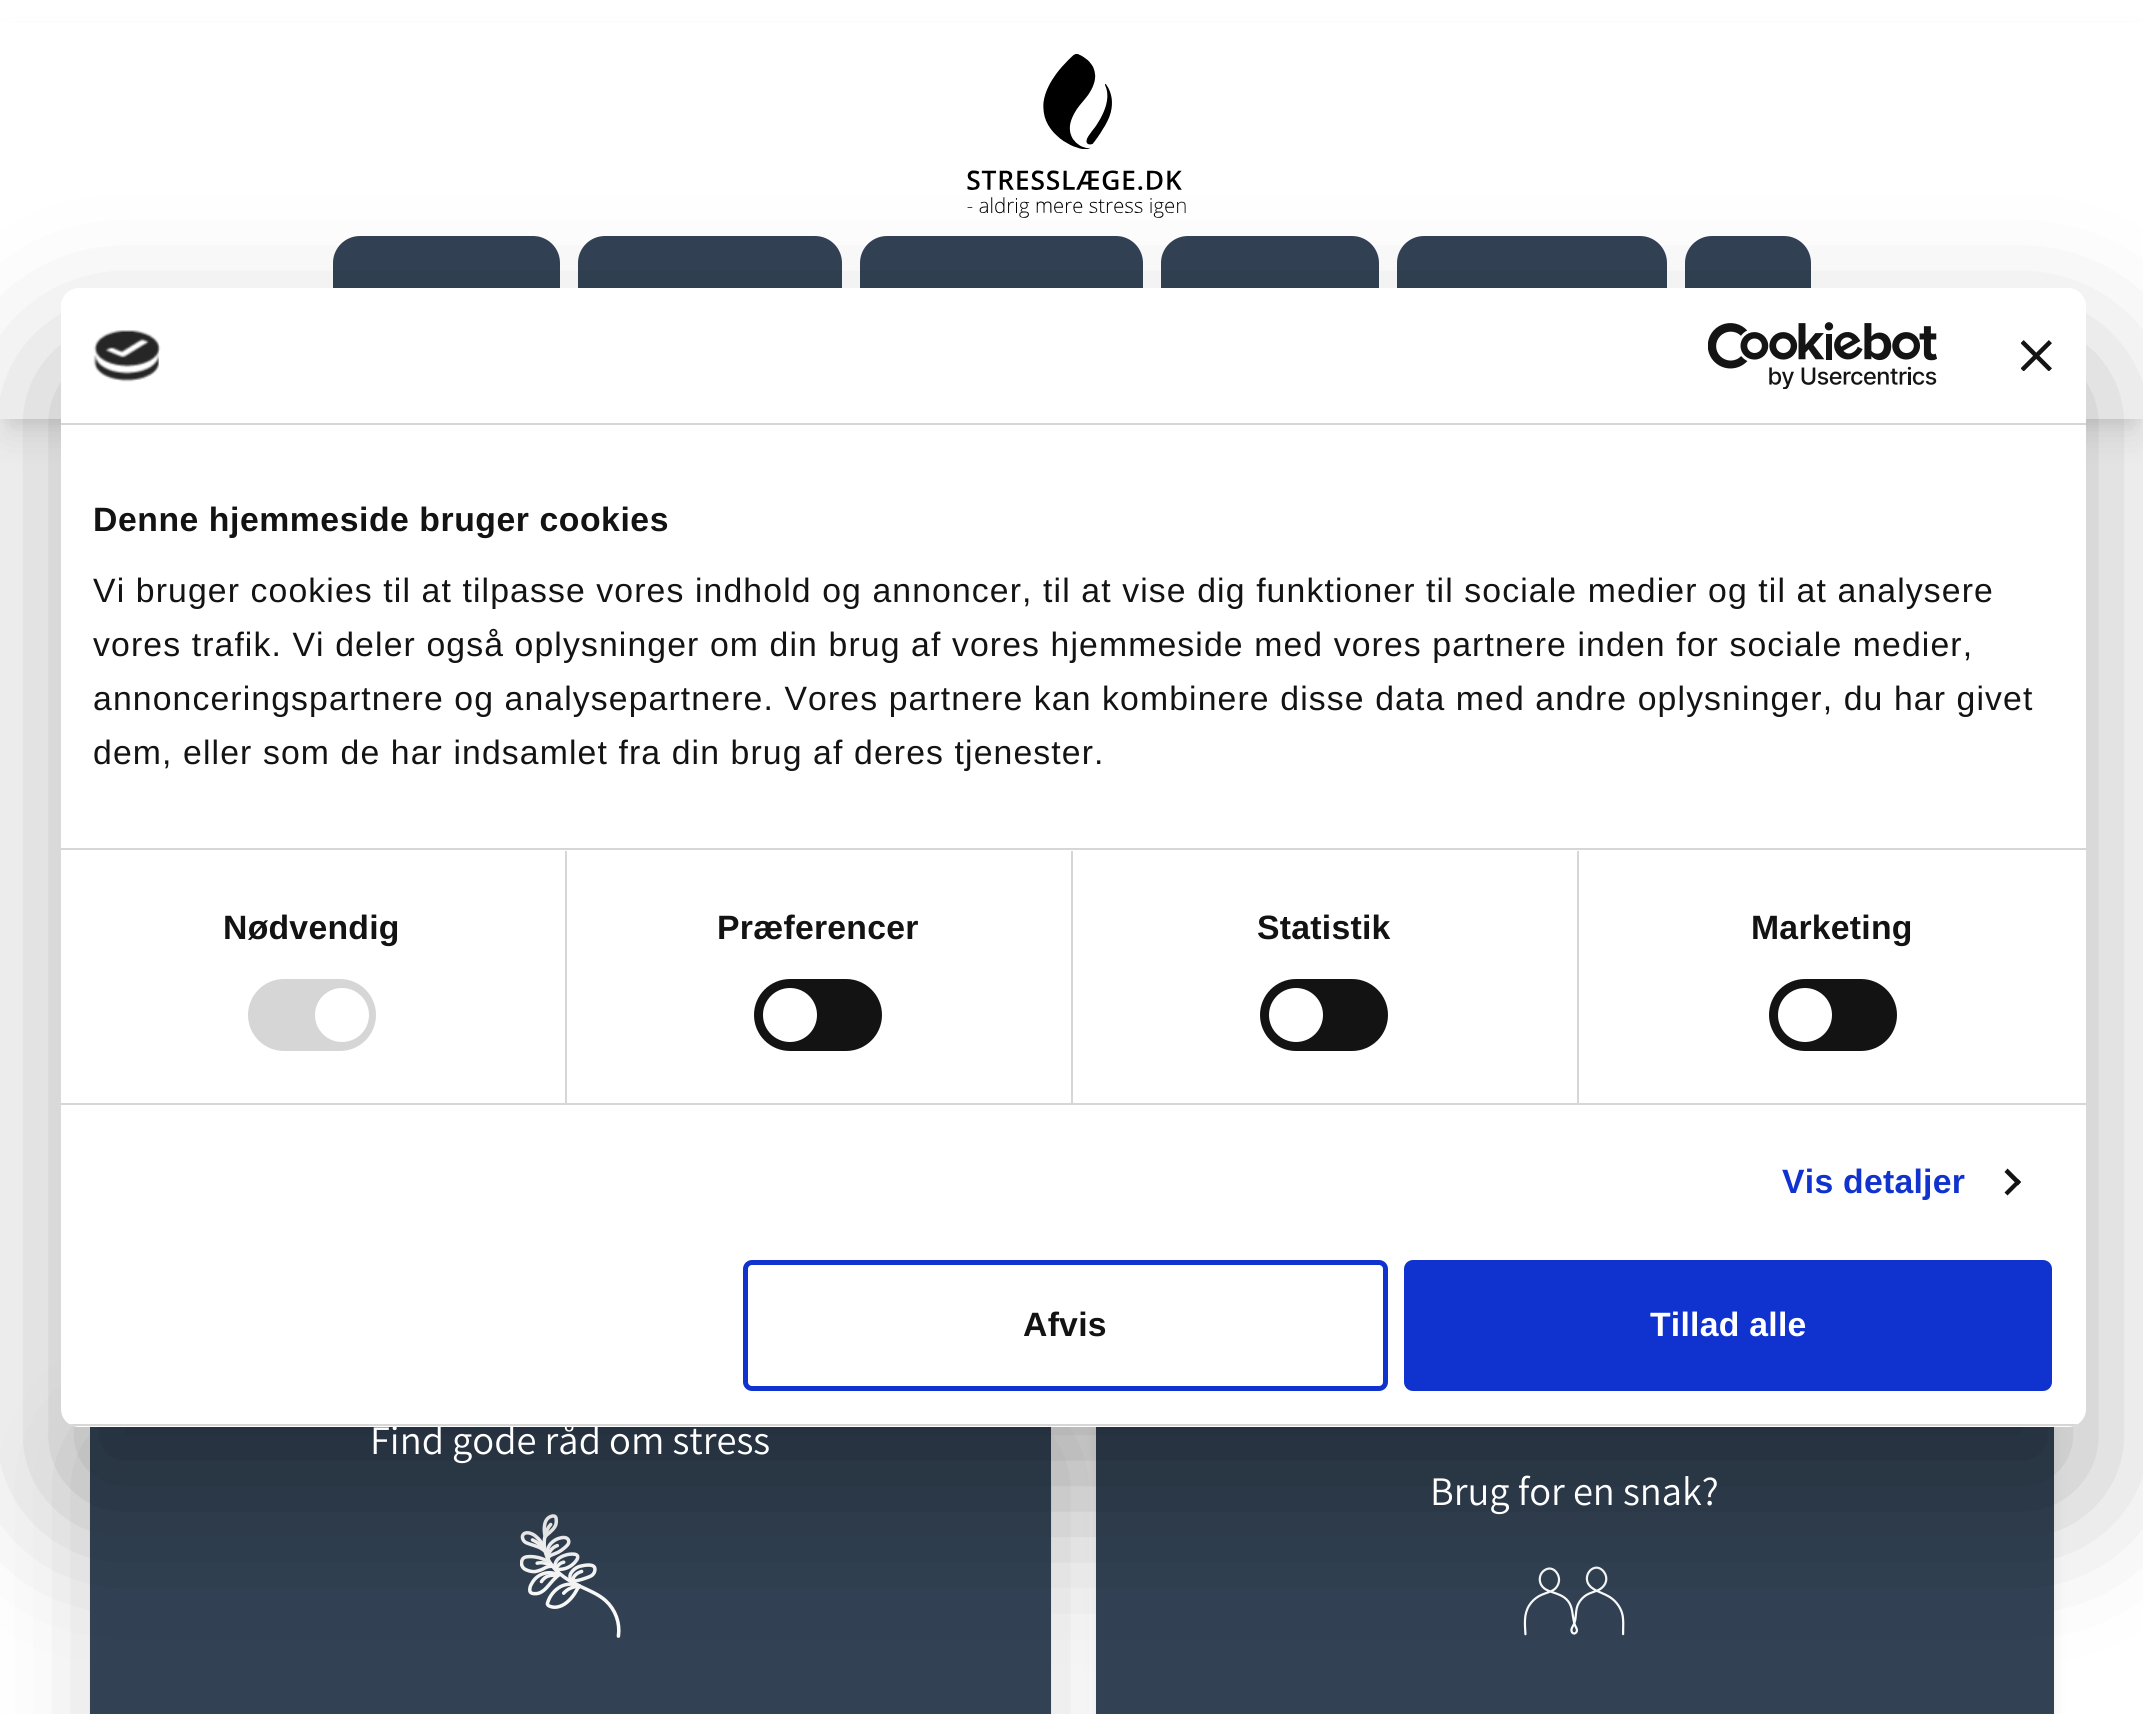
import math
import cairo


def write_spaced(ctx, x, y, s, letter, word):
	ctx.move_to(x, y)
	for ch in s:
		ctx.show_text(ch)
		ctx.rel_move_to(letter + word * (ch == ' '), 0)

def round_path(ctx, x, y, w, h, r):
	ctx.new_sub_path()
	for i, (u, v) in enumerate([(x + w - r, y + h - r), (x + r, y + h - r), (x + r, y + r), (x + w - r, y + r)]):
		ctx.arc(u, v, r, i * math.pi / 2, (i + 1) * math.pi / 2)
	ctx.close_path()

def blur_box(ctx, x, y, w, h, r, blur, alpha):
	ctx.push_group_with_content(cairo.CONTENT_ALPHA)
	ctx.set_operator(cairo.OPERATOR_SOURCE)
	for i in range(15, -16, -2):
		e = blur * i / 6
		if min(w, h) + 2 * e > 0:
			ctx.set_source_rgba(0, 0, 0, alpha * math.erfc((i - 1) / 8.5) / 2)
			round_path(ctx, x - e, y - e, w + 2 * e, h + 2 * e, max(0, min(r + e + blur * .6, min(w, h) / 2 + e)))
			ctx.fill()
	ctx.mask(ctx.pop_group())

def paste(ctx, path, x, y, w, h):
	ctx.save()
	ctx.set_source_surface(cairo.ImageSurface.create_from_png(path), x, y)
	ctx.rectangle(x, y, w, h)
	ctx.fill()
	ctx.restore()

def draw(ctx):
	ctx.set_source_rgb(1, 1, 1)
	ctx.paint()
	ctx.set_source_rgb(0, 0, 0)
	blur_box(ctx, 9, 36, 2126, 383, 0, 7, 0.1)
	blur_box(ctx, 7, 47, 2131, 387, 0, 17, 0.1)
	ctx.set_source_rgb(1, 1, 1)
	ctx.rectangle(0, 23, 2143, 396)
	ctx.fill()
	paste(ctx, 'media/4.png', 967, 54, 219, 164)
	ctx.set_source_rgb(0.196, 0.259, 0.329)
	round_path(ctx, 333, 236, 227, 102, 27)
	ctx.fill()
	round_path(ctx, 578, 236, 264, 102, 27)
	ctx.fill()
	round_path(ctx, 860, 236, 283, 102, 27)
	ctx.fill()
	round_path(ctx, 1161, 236, 218, 102, 27)
	ctx.fill()
	round_path(ctx, 1397, 236, 270, 102, 27)
	ctx.fill()
	round_path(ctx, 1685, 236, 126, 102, 27)
	ctx.fill()
	ctx.set_source_rgb(0, 0, 0)
	blur_box(ctx, 117, 1447, 907, 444, 9, 56, 0.25)
	ctx.set_source_rgb(0.196, 0.259, 0.329)
	ctx.rectangle(90, 1427, 961, 287)
	ctx.fill()
	paste(ctx, 'media/5.png', 520, 1514, 101, 124)
	ctx.set_source_rgb(0, 0, 0)
	blur_box(ctx, 1098, 1375, 954, 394, 34, 7, 0.1)
	ctx.set_source_rgb(0.196, 0.259, 0.329)
	ctx.rectangle(1096, 1427, 958, 287)
	ctx.fill()
	paste(ctx, 'media/6.png', 1523, 1566, 102, 70)
	ctx.set_source_rgb(0, 0, 0)
	blur_box(ctx, 61, 360, 2025, 1139, 18, 76.5, 0.3)
	ctx.set_source_rgb(1, 1, 1)
	round_path(ctx, 61, 288, 2025, 1139, 18)
	ctx.fill()
	ctx.set_source_rgb(0.839, 0.839, 0.839)
	ctx.rectangle(61, 423, 2025, 2)
	ctx.fill()
	paste(ctx, 'media/1.png', 93, 330, 68, 52)
	paste(ctx, 'media/2.png', 1708, 322, 229, 67)
	paste(ctx, 'media/3.png', 2021, 340, 31, 31)
	ctx.rectangle(61, 848, 2025, 2)
	ctx.fill()
	ctx.select_font_face('Liberation Sans', cairo.FONT_SLANT_NORMAL, cairo.FONT_WEIGHT_BOLD)
	ctx.set_font_size(33.75)
	ctx.set_source_rgb(0.078, 0.078, 0.078)
	write_spaced(ctx, 93, 531, 'Denne hjemmeside bruger cookies', 0.55, 0)
	ctx.select_font_face('Liberation Sans')
	for x, y, s in [
		(93, 602, 'Vi bruger cookies til at tilpasse vores indhold og annoncer, til at vise dig funktioner til sociale medier og til at analysere'),
		(93, 656, 'vores trafik. Vi deler også oplysninger om din brug af vores hjemmeside med vores partnere inden for sociale medier,'),
		(93, 710, 'annonceringspartnere og analysepartnere. Vores partnere kan kombinere disse data med andre oplysninger, du har givet'),
		(93, 764, 'dem, eller som de har indsamlet fra din brug af deres tjenester.'),
	]:
		write_spaced(ctx, x, y, s, 1.12, 0)
	ctx.set_source_rgb(0.839, 0.839, 0.839)
	ctx.rectangle(61, 1103, 2025, 2)
	ctx.fill()
	ctx.rectangle(565, 851, 2, 252)
	ctx.fill()
	ctx.select_font_face('Liberation Sans', cairo.FONT_SLANT_NORMAL, cairo.FONT_WEIGHT_BOLD)
	ctx.set_source_rgb(0.078, 0.078, 0.078)
	write_spaced(ctx, 223, 939, 'Nødvendig', 0.25, 0)
	ctx.set_source_rgb(0.839, 0.839, 0.839)
	round_path(ctx, 248, 979, 128, 72, 36)
	ctx.fill()
	ctx.set_source_rgb(1, 1, 1)
	ctx.arc(342, 1015, 27, 0, 2 * math.pi)
	ctx.fill()
	ctx.set_source_rgb(0.839, 0.839, 0.839)
	ctx.rectangle(1071, 851, 2, 252)
	ctx.fill()
	ctx.set_source_rgb(0.078, 0.078, 0.078)
	write_spaced(ctx, 717, 939, 'Præferencer', 0.25, 0)
	round_path(ctx, 754, 979, 128, 72, 36)
	ctx.fill()
	ctx.set_source_rgb(1, 1, 1)
	ctx.arc(790, 1015, 27, 0, 2 * math.pi)
	ctx.fill()
	ctx.set_source_rgb(0.839, 0.839, 0.839)
	ctx.rectangle(1577, 851, 2, 252)
	ctx.fill()
	ctx.set_source_rgb(0.078, 0.078, 0.078)
	write_spaced(ctx, 1257, 939, 'Statistik', 0.25, 0)
	round_path(ctx, 1260, 979, 128, 72, 36)
	ctx.fill()
	ctx.set_source_rgb(1, 1, 1)
	ctx.arc(1296, 1015, 27, 0, 2 * math.pi)
	ctx.fill()
	ctx.set_source_rgb(0.078, 0.078, 0.078)
	write_spaced(ctx, 1751, 939, 'Marketing', 0.25, 0)
	round_path(ctx, 1769, 979, 128, 72, 36)
	ctx.fill()
	ctx.set_source_rgb(1, 1, 1)
	ctx.arc(1805, 1015, 27, 0, 2 * math.pi)
	ctx.fill()
	ctx.set_source_rgb(0.063, 0.196, 0.812)
	write_spaced(ctx, 1782, 1193, 'Vis detaljer', 0.25, 0)
	ctx.set_source_rgb(0.078, 0.078, 0.078)
	ctx.new_path()
	ctx.move_to(2007.5, 1168.5)
	ctx.line_to(2021, 1182)
	ctx.line_to(2018, 1185.5)
	ctx.line_to(2004.5, 1172)
	ctx.close_path()
	ctx.fill()
	ctx.new_path()
	ctx.move_to(2018, 1179)
	ctx.line_to(2021, 1182)
	ctx.line_to(2007.5, 1195.5)
	ctx.line_to(2004.5, 1192.5)
	ctx.close_path()
	ctx.fill()
	ctx.select_font_face('Assistant')
	ctx.set_font_size(40.5)
	ctx.set_source_rgb(1, 1, 1)
	ctx.move_to(370, 1454)
	ctx.show_text('Find gode råd om stress')
	ctx.save()
	round_path(ctx, 61, 288, 2025, 1139, 18)
	ctx.clip()
	ctx.set_source_rgb(0.839, 0.839, 0.839)
	ctx.rectangle(61, 1424, 2025, 2)
	ctx.fill()
	ctx.restore()
	round_path(ctx, 745.5, 1262.5, 640, 126, 6.5)
	ctx.set_source_rgb(0.063, 0.196, 0.812)
	ctx.set_line_width(5)
	ctx.stroke()
	ctx.select_font_face('Liberation Sans', cairo.FONT_SLANT_NORMAL, cairo.FONT_WEIGHT_BOLD)
	ctx.set_font_size(33.75)
	ctx.set_source_rgb(0.078, 0.078, 0.078)
	write_spaced(ctx, 1023, 1336, 'Afvis', 0.25, 0)
	ctx.set_source_rgb(0.063, 0.196, 0.812)
	round_path(ctx, 1406.5, 1262.5, 643, 126, 6.5)
	ctx.fill_preserve()
	ctx.stroke()
	ctx.set_source_rgb(1, 1, 1)
	write_spaced(ctx, 1650, 1336, 'Tillad alle', 0.25, 0)
	ctx.select_font_face('Assistant')
	ctx.set_font_size(40.5)
	ctx.move_to(1430, 1505)
	ctx.show_text('Brug for en snak?')


surface = cairo.ImageSurface(cairo.FORMAT_RGB24, 2143, 1714)
ctx = cairo.Context(surface)
options = cairo.FontOptions()
options.set_hint_metrics(cairo.HINT_METRICS_OFF)
options.set_hint_style(cairo.HINT_STYLE_NONE)
ctx.set_font_options(options)
ctx.set_miter_limit(4)
draw(ctx)
surface.write_to_png('image.png')
